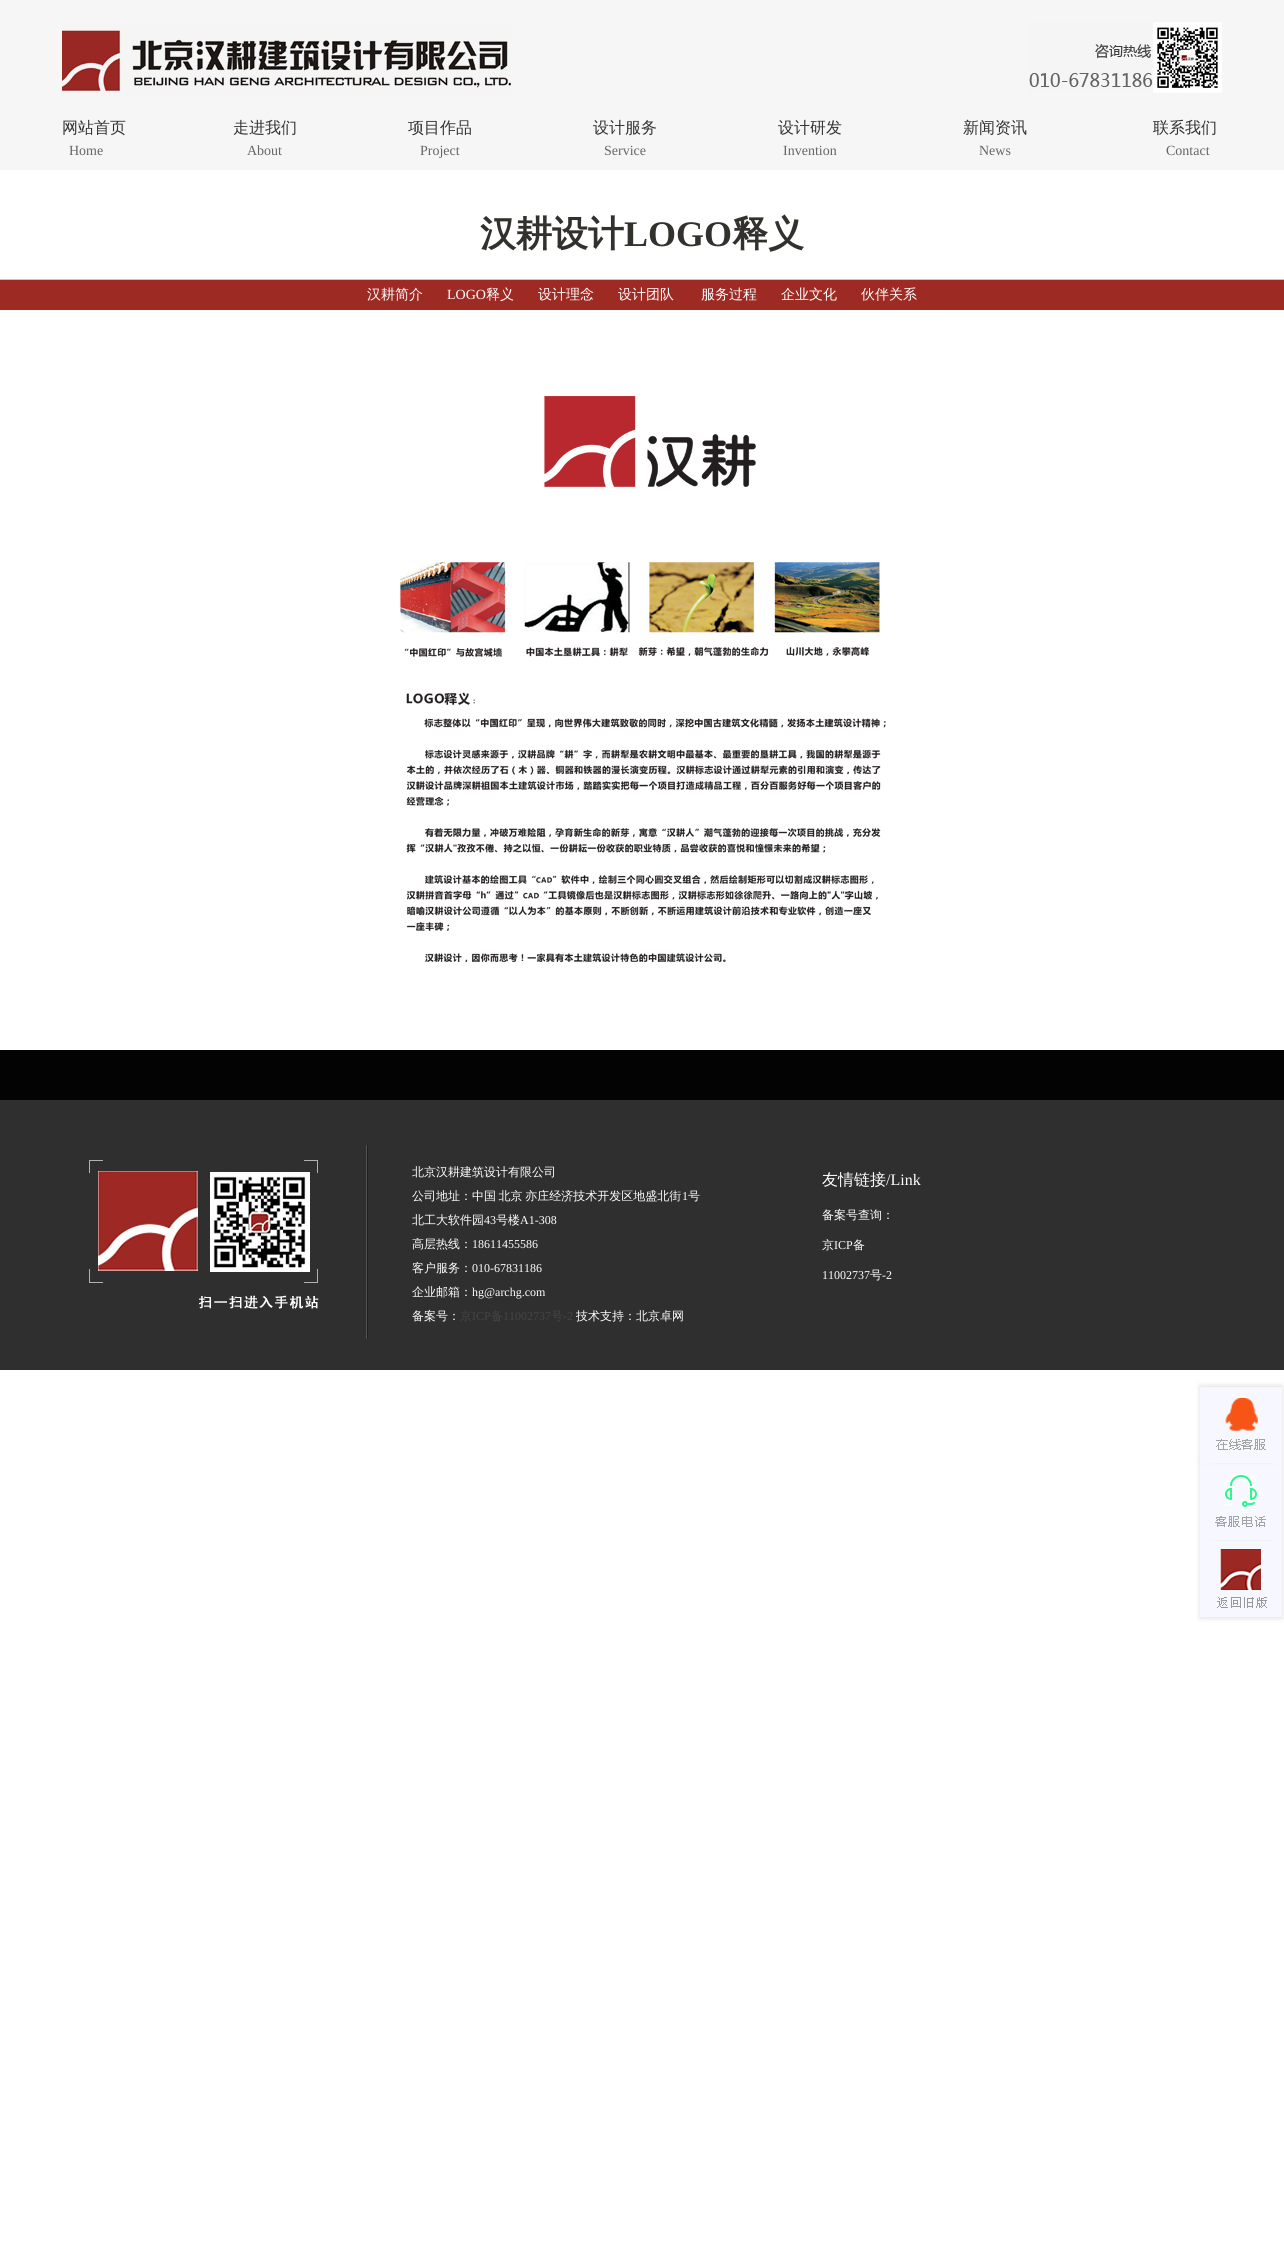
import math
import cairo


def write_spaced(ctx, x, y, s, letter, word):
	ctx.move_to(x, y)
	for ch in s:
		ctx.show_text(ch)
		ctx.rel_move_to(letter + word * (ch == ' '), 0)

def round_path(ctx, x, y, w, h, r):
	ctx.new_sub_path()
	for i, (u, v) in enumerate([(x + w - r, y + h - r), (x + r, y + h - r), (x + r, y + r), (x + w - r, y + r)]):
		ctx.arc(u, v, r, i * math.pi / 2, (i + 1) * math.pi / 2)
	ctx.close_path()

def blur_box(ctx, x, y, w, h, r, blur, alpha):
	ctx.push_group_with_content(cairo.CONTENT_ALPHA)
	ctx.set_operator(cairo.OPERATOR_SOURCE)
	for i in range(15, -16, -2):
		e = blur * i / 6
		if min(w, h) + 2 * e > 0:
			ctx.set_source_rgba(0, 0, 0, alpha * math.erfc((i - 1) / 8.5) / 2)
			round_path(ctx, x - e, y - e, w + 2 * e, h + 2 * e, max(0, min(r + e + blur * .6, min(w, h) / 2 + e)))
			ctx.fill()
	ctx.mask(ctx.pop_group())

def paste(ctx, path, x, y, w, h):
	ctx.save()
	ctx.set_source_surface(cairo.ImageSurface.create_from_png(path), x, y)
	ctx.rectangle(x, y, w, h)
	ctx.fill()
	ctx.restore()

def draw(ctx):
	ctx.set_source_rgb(1, 1, 1)
	ctx.paint()
	ctx.set_source_rgb(0.961, 0.961, 0.961)
	ctx.rectangle(0, 0, 1284, 170)
	ctx.fill()
	paste(ctx, 'media/1.png', 62, 24, 449, 72)
	paste(ctx, 'media/2.png', 1029, 22, 193, 71)
	ctx.select_font_face('WenQuanYi Zen Hei Medium')
	ctx.set_font_size(16)
	ctx.set_source_rgb(0.2, 0.2, 0.2)
	ctx.move_to(62, 133)
	ctx.show_text('网站首页')
	ctx.select_font_face('Liberation Serif')
	ctx.set_font_size(14)
	ctx.set_source_rgb(0.396, 0.396, 0.396)
	ctx.move_to(69, 155)
	ctx.show_text('Home')
	ctx.select_font_face('WenQuanYi Zen Hei Medium')
	ctx.set_font_size(16)
	ctx.set_source_rgb(0.2, 0.2, 0.2)
	ctx.move_to(233, 133)
	ctx.show_text('走进我们')
	ctx.select_font_face('Liberation Serif')
	ctx.set_font_size(14)
	ctx.set_source_rgb(0.396, 0.396, 0.396)
	ctx.move_to(247, 155)
	ctx.show_text('About')
	ctx.select_font_face('WenQuanYi Zen Hei Medium')
	ctx.set_font_size(16)
	ctx.set_source_rgb(0.2, 0.2, 0.2)
	ctx.move_to(408, 133)
	ctx.show_text('项目作品')
	ctx.select_font_face('Liberation Serif')
	ctx.set_font_size(14)
	ctx.set_source_rgb(0.396, 0.396, 0.396)
	ctx.move_to(420, 155)
	ctx.show_text('Project')
	ctx.select_font_face('WenQuanYi Zen Hei Medium')
	ctx.set_font_size(16)
	ctx.set_source_rgb(0.2, 0.2, 0.2)
	ctx.move_to(593, 133)
	ctx.show_text('设计服务')
	ctx.select_font_face('Liberation Serif')
	ctx.set_font_size(14)
	ctx.set_source_rgb(0.396, 0.396, 0.396)
	ctx.move_to(604, 155)
	ctx.show_text('Service')
	ctx.select_font_face('WenQuanYi Zen Hei Medium')
	ctx.set_font_size(16)
	ctx.set_source_rgb(0.2, 0.2, 0.2)
	ctx.move_to(778, 133)
	ctx.show_text('设计研发')
	ctx.select_font_face('Liberation Serif')
	ctx.set_font_size(14)
	ctx.set_source_rgb(0.396, 0.396, 0.396)
	ctx.move_to(783, 155)
	ctx.show_text('Invention')
	ctx.select_font_face('WenQuanYi Zen Hei Medium')
	ctx.set_font_size(16)
	ctx.set_source_rgb(0.2, 0.2, 0.2)
	ctx.move_to(963, 133)
	ctx.show_text('新闻资讯')
	ctx.select_font_face('Liberation Serif')
	ctx.set_font_size(14)
	ctx.set_source_rgb(0.396, 0.396, 0.396)
	ctx.move_to(979, 155)
	ctx.show_text('News')
	ctx.select_font_face('WenQuanYi Zen Hei Medium')
	ctx.set_font_size(16)
	ctx.set_source_rgb(0.2, 0.2, 0.2)
	ctx.move_to(1153, 133)
	ctx.show_text('联系我们')
	ctx.select_font_face('Liberation Serif')
	ctx.set_font_size(14)
	ctx.set_source_rgb(0.396, 0.396, 0.396)
	ctx.move_to(1166, 155)
	ctx.show_text('Contact')
	ctx.set_source_rgb(0.773, 0.773, 0.773)
	ctx.rectangle(0, 279, 1284, 1)
	ctx.fill()
	ctx.select_font_face('WenQuanYi Zen Hei', cairo.FONT_SLANT_NORMAL, cairo.FONT_WEIGHT_BOLD)
	ctx.set_font_size(36)
	ctx.set_source_rgb(0.196, 0.192, 0.176)
	ctx.move_to(480, 246)
	ctx.show_text('汉耕设计')
	ctx.select_font_face('Liberation Serif', cairo.FONT_SLANT_NORMAL, cairo.FONT_WEIGHT_BOLD)
	ctx.move_to(624, 246)
	ctx.show_text('LOGO')
	ctx.select_font_face('WenQuanYi Zen Hei', cairo.FONT_SLANT_NORMAL, cairo.FONT_WEIGHT_BOLD)
	ctx.move_to(732, 246)
	ctx.show_text('释义')
	ctx.set_source_rgb(0.616, 0.165, 0.137)
	ctx.rectangle(0, 280, 1284, 30)
	ctx.fill()
	ctx.select_font_face('WenQuanYi Zen Hei Medium')
	ctx.set_font_size(14)
	ctx.set_source_rgb(1, 1, 1)
	ctx.move_to(367, 299)
	ctx.show_text('汉耕简介')
	ctx.select_font_face('Liberation Serif')
	ctx.move_to(447, 299)
	ctx.show_text('LOGO')
	ctx.select_font_face('WenQuanYi Zen Hei Medium')
	for x, y, s in [
		(486, 299, '释义'),
		(538, 299, '设计理念'),
		(618, 299, '设计团队'),
		(701, 299, '服务过程'),
		(781, 299, '企业文化'),
		(861, 299, '伙伴关系'),
	]:
		ctx.move_to(x, y)
		ctx.show_text(s)
	paste(ctx, 'media/3.png', 397, 396, 489, 566)
	ctx.set_source_rgb(0.012, 0.012, 0.012)
	ctx.rectangle(0, 1050, 1284, 50)
	ctx.fill()
	ctx.set_source_rgb(0.184, 0.184, 0.184)
	ctx.rectangle(0, 1100, 1284, 270)
	ctx.fill()
	paste(ctx, 'media/4.png', 89, 1145, 279, 194)
	ctx.set_font_size(12)
	ctx.set_source_rgb(1, 1, 1)
	ctx.move_to(412, 1176)
	ctx.show_text('北京汉耕建筑设计有限公司')
	write_spaced(ctx, 412, 1200, '公司地址：中国 北京 亦庄经济技术开发区地盛北街', 0, -1)
	ctx.select_font_face('Liberation Serif')
	ctx.move_to(682, 1200)
	ctx.show_text('1')
	ctx.select_font_face('WenQuanYi Zen Hei Medium')
	ctx.move_to(688, 1200)
	ctx.show_text('号')
	ctx.move_to(412, 1224)
	ctx.show_text('北工大软件园')
	ctx.select_font_face('Liberation Serif')
	ctx.move_to(484, 1224)
	ctx.show_text('43')
	ctx.select_font_face('WenQuanYi Zen Hei Medium')
	ctx.move_to(496, 1224)
	ctx.show_text('号楼')
	ctx.select_font_face('Liberation Serif')
	ctx.move_to(520, 1224)
	ctx.show_text('A1-308')
	ctx.select_font_face('WenQuanYi Zen Hei Medium')
	ctx.move_to(412, 1248)
	ctx.show_text('高层热线：')
	ctx.select_font_face('Liberation Serif')
	ctx.move_to(472, 1248)
	ctx.show_text('18611455586')
	ctx.select_font_face('WenQuanYi Zen Hei Medium')
	ctx.move_to(412, 1272)
	ctx.show_text('客户服务：')
	ctx.select_font_face('Liberation Serif')
	ctx.move_to(472, 1272)
	ctx.show_text('010-67831186')
	ctx.select_font_face('WenQuanYi Zen Hei Medium')
	ctx.move_to(412, 1296)
	ctx.show_text('企业邮箱：')
	ctx.select_font_face('Liberation Serif')
	ctx.move_to(472, 1296)
	ctx.show_text('hg@archg.com')
	ctx.select_font_face('WenQuanYi Zen Hei Medium')
	ctx.move_to(412, 1320)
	ctx.show_text('备案号：')
	ctx.set_source_rgb(0.267, 0.267, 0.267)
	ctx.move_to(460, 1320)
	ctx.show_text('京')
	ctx.select_font_face('Liberation Serif')
	ctx.move_to(472, 1320)
	ctx.show_text('ICP')
	ctx.select_font_face('WenQuanYi Zen Hei Medium')
	ctx.move_to(491, 1320)
	ctx.show_text('备')
	ctx.select_font_face('Liberation Serif')
	ctx.move_to(503, 1320)
	ctx.show_text('11002737')
	ctx.select_font_face('WenQuanYi Zen Hei Medium')
	ctx.move_to(551, 1320)
	ctx.show_text('号')
	ctx.select_font_face('Liberation Serif')
	ctx.move_to(563, 1320)
	ctx.show_text('-2')
	ctx.select_font_face('WenQuanYi Zen Hei Medium')
	ctx.set_source_rgb(1, 1, 1)
	ctx.move_to(576, 1320)
	ctx.show_text('技术支持：北京卓网')
	ctx.set_font_size(16)
	ctx.move_to(822, 1185)
	ctx.show_text('友情链接')
	ctx.select_font_face('Liberation Serif')
	ctx.move_to(886, 1185)
	ctx.show_text('/Link')
	ctx.select_font_face('WenQuanYi Zen Hei Medium')
	ctx.set_font_size(12)
	ctx.move_to(822, 1219)
	ctx.show_text('备案号查询：')
	ctx.move_to(822, 1249)
	ctx.show_text('京')
	ctx.select_font_face('Liberation Serif')
	ctx.move_to(834, 1249)
	ctx.show_text('ICP')
	ctx.select_font_face('WenQuanYi Zen Hei Medium')
	ctx.move_to(853, 1249)
	ctx.show_text('备')
	ctx.select_font_face('Liberation Serif')
	ctx.move_to(822, 1279)
	ctx.show_text('11002737')
	ctx.select_font_face('WenQuanYi Zen Hei Medium')
	ctx.move_to(870, 1279)
	ctx.show_text('号')
	ctx.select_font_face('Liberation Serif')
	ctx.move_to(882, 1279)
	ctx.show_text('-2')
	ctx.set_source_rgb(0.867, 0.867, 0.867)
	blur_box(ctx, 1200, 1464, 82, 154, 0, 2.5, 1)
	paste(ctx, 'media/5.png', 1200, 1465, 82, 74)
	blur_box(ctx, 1200, 1386, 82, 76, 0, 2.5, 1)
	paste(ctx, 'media/6.png', 1200, 1539, 82, 78)
	paste(ctx, 'media/7.png', 1200, 1387, 82, 76)
	paste(ctx, 'media/8.png', 1200, 1463, 82, 2)


surface = cairo.ImageSurface(cairo.FORMAT_RGB24, 1284, 2250)
ctx = cairo.Context(surface)
options = cairo.FontOptions()
options.set_hint_metrics(cairo.HINT_METRICS_OFF)
options.set_hint_style(cairo.HINT_STYLE_NONE)
ctx.set_font_options(options)
ctx.set_miter_limit(4)
draw(ctx)
surface.write_to_png('image.png')
